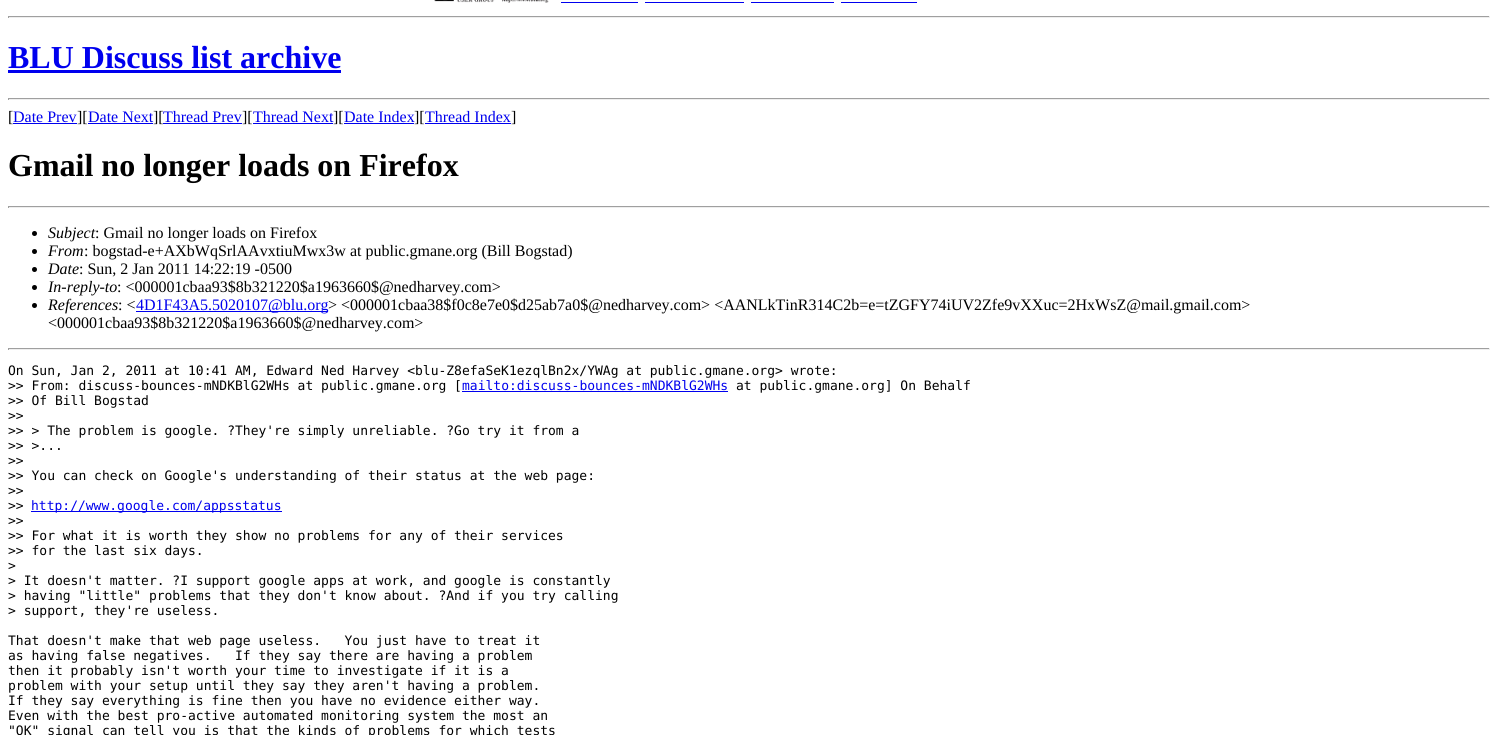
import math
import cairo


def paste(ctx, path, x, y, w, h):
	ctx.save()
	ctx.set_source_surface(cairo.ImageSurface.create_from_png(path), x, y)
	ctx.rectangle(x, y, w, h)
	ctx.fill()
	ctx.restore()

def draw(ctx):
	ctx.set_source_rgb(1, 1, 1)
	ctx.paint()
	paste(ctx, 'media/1.png', 434, 0, 115, 3)
	ctx.set_source_rgb(0, 0, 0.933)
	ctx.rectangle(561, 2, 77, 1)
	ctx.rectangle(645, 2, 99, 1)
	ctx.rectangle(751, 2, 83, 1)
	ctx.rectangle(841, 2, 76, 1)
	ctx.fill()
	ctx.set_source_rgb(0.624, 0.624, 0.624)
	ctx.rectangle(8, 16, 1482, 1)
	ctx.fill()
	ctx.set_source_rgb(0.933, 0.933, 0.933)
	ctx.rectangle(1489, 16, 1, 2)
	ctx.rectangle(8, 17, 1482, 1)
	ctx.fill()
	ctx.set_source_rgb(0.624, 0.624, 0.624)
	ctx.rectangle(8, 16, 1, 2)
	ctx.fill()
	ctx.select_font_face('Liberation Serif', cairo.FONT_SLANT_NORMAL, cairo.FONT_WEIGHT_BOLD)
	ctx.set_font_size(32)
	ctx.set_source_rgb(0, 0, 0.933)
	ctx.move_to(8, 68)
	ctx.show_text('BLU Discuss list archive')
	ctx.rectangle(8, 70, 333, 3)
	ctx.fill()
	ctx.set_source_rgb(0.624, 0.624, 0.624)
	ctx.rectangle(8, 98, 1482, 1)
	ctx.fill()
	ctx.set_source_rgb(0.933, 0.933, 0.933)
	ctx.rectangle(1489, 98, 1, 2)
	ctx.rectangle(8, 99, 1482, 1)
	ctx.fill()
	ctx.set_source_rgb(0.624, 0.624, 0.624)
	ctx.rectangle(8, 98, 1, 2)
	ctx.fill()
	ctx.select_font_face('Liberation Serif')
	ctx.set_font_size(16)
	ctx.set_source_rgb(0, 0, 0)
	ctx.move_to(8, 122)
	ctx.show_text('[')
	ctx.set_source_rgb(0, 0, 0.933)
	ctx.move_to(13, 122)
	ctx.show_text('Date Prev')
	ctx.rectangle(13, 123, 64, 1)
	ctx.fill()
	ctx.set_source_rgb(0, 0, 0)
	ctx.move_to(77, 122)
	ctx.show_text('][')
	ctx.set_source_rgb(0, 0, 0.933)
	ctx.move_to(88, 122)
	ctx.show_text('Date Next')
	ctx.rectangle(88, 123, 65, 1)
	ctx.fill()
	ctx.set_source_rgb(0, 0, 0)
	ctx.move_to(153, 122)
	ctx.show_text('][')
	ctx.set_source_rgb(0, 0, 0.933)
	ctx.move_to(163, 122)
	ctx.show_text('Thread Prev')
	ctx.rectangle(163, 123, 79, 1)
	ctx.fill()
	ctx.set_source_rgb(0, 0, 0)
	ctx.move_to(242, 122)
	ctx.show_text('][')
	ctx.set_source_rgb(0, 0, 0.933)
	ctx.move_to(253, 122)
	ctx.show_text('Thread Next')
	ctx.rectangle(253, 123, 80, 1)
	ctx.fill()
	ctx.set_source_rgb(0, 0, 0)
	ctx.move_to(333, 122)
	ctx.show_text('][')
	ctx.set_source_rgb(0, 0, 0.933)
	ctx.move_to(344, 122)
	ctx.show_text('Date Index')
	ctx.rectangle(344, 123, 70, 1)
	ctx.fill()
	ctx.set_source_rgb(0, 0, 0)
	ctx.move_to(414, 122)
	ctx.show_text('][')
	ctx.set_source_rgb(0, 0, 0.933)
	ctx.move_to(425, 122)
	ctx.show_text('Thread Index')
	ctx.rectangle(425, 123, 86, 1)
	ctx.fill()
	ctx.set_source_rgb(0, 0, 0)
	ctx.move_to(511, 122)
	ctx.show_text(']')
	ctx.select_font_face('Liberation Serif', cairo.FONT_SLANT_NORMAL, cairo.FONT_WEIGHT_BOLD)
	ctx.set_font_size(32)
	ctx.move_to(8, 176)
	ctx.show_text('Gmail no longer loads on Firefox')
	ctx.set_source_rgb(0.624, 0.624, 0.624)
	ctx.rectangle(8, 206, 1482, 1)
	ctx.fill()
	ctx.set_source_rgb(0.933, 0.933, 0.933)
	ctx.rectangle(1489, 206, 1, 2)
	ctx.rectangle(8, 207, 1482, 1)
	ctx.fill()
	ctx.set_source_rgb(0.624, 0.624, 0.624)
	ctx.rectangle(8, 206, 1, 2)
	ctx.fill()
	ctx.set_source_rgb(0, 0, 0)
	ctx.arc(34.5, 233.5, 2.5, 0, 2 * math.pi)
	ctx.fill()
	ctx.select_font_face('Liberation Serif', cairo.FONT_SLANT_ITALIC)
	ctx.set_font_size(16)
	ctx.move_to(48, 238)
	ctx.show_text('Subject')
	ctx.select_font_face('Liberation Serif')
	ctx.move_to(95, 238)
	ctx.show_text(': Gmail no longer loads on Firefox')
	ctx.new_path()
	ctx.arc(34.5, 251.5, 2.5, 0, 2 * math.pi)
	ctx.fill()
	ctx.select_font_face('Liberation Serif', cairo.FONT_SLANT_ITALIC)
	ctx.move_to(48, 256)
	ctx.show_text('From')
	ctx.select_font_face('Liberation Serif')
	ctx.move_to(84, 256)
	ctx.show_text(': bogstad-e+AXbWqSrlAAvxtiuMwx3w at public.gmane.org (Bill Bogstad)')
	ctx.new_path()
	ctx.arc(34.5, 269.5, 2.5, 0, 2 * math.pi)
	ctx.fill()
	ctx.select_font_face('Liberation Serif', cairo.FONT_SLANT_ITALIC)
	ctx.move_to(48, 274)
	ctx.show_text('Date')
	ctx.select_font_face('Liberation Serif')
	ctx.move_to(79, 274)
	ctx.show_text(': Sun, 2 Jan 2011 14:22:19 -0500')
	ctx.new_path()
	ctx.arc(34.5, 287.5, 2.5, 0, 2 * math.pi)
	ctx.fill()
	ctx.select_font_face('Liberation Serif', cairo.FONT_SLANT_ITALIC)
	ctx.move_to(48, 292)
	ctx.show_text('In-reply-to')
	ctx.select_font_face('Liberation Serif')
	ctx.move_to(117, 292)
	ctx.show_text(': <000001cbaa93$8b321220$a1963660$@nedharvey.com>')
	ctx.new_path()
	ctx.arc(34.5, 305.5, 2.5, 0, 2 * math.pi)
	ctx.fill()
	ctx.select_font_face('Liberation Serif', cairo.FONT_SLANT_ITALIC)
	ctx.move_to(48, 310)
	ctx.show_text('References')
	ctx.select_font_face('Liberation Serif')
	ctx.move_to(118, 310)
	ctx.show_text(': <')
	ctx.set_source_rgb(0, 0, 0.933)
	ctx.rectangle(136, 311, 192, 1)
	ctx.fill()
	ctx.move_to(136, 310)
	ctx.show_text('4D1F43A5.5020107@blu.org')
	ctx.set_source_rgb(0, 0, 0)
	ctx.move_to(328, 310)
	ctx.show_text('> <000001cbaa38$f0c8e7e0$d25ab7a0$@nedharvey.com> <AANLkTinR314C2b=e=tZGFY74iUV2Zfe9vXXuc=2HxWsZ@mail.gmail.com>')
	ctx.move_to(48, 328)
	ctx.show_text('<000001cbaa93$8b321220$a1963660$@nedharvey.com>')
	ctx.set_source_rgb(0.624, 0.624, 0.624)
	ctx.rectangle(8, 348, 1482, 1)
	ctx.fill()
	ctx.set_source_rgb(0.933, 0.933, 0.933)
	ctx.rectangle(1489, 348, 1, 2)
	ctx.rectangle(8, 349, 1482, 1)
	ctx.fill()
	ctx.set_source_rgb(0.624, 0.624, 0.624)
	ctx.rectangle(8, 348, 1, 2)
	ctx.fill()
	ctx.select_font_face('DejaVu Sans Mono')
	ctx.set_font_size(13)
	ctx.set_source_rgb(0, 0, 0)
	ctx.move_to(8, 375)
	ctx.show_text('On Sun, Jan 2, 2011 at 10:41 AM, Edward Ned Harvey <blu-Z8efaSeK1ezqlBn2x/YWAg at public.gmane.org> wrote:')
	ctx.move_to(8, 390)
	ctx.show_text('>> From: discuss-bounces-mNDKBlG2WHs at public.gmane.org [')
	ctx.set_source_rgb(0, 0, 0.933)
	ctx.move_to(462, 390)
	ctx.show_text('mailto:discuss-bounces-mNDKBlG2WHs')
	ctx.rectangle(462, 391, 266, 1)
	ctx.fill()
	ctx.set_source_rgb(0, 0, 0)
	for x, y, s in [
		(736, 390, 'at public.gmane.org] On Behalf'),
		(8, 405, '>> Of Bill Bogstad'),
		(8, 420, '>>'),
		(8, 435, '>> > The problem is google. ?They\'re simply unreliable. ?Go try it from a'),
		(8, 450, '>> >...'),
		(8, 465, '>>'),
		(8, 480, '>> You can check on Google\'s understanding of their status at the web page:'),
		(8, 495, '>>'),
		(8, 510, '>>'),
	]:
		ctx.move_to(x, y)
		ctx.show_text(s)
	ctx.set_source_rgb(0, 0, 0.933)
	ctx.rectangle(31, 511, 251, 1)
	ctx.fill()
	ctx.move_to(31, 510)
	ctx.show_text('http://www.google.com/appsstatus')
	ctx.set_source_rgb(0, 0, 0)
	for x, y, s in [
		(8, 525, '>>'),
		(8, 540, '>> For what it is worth they show no problems for any of their services'),
		(8, 555, '>> for the last six days.'),
		(8, 570, '>'),
		(8, 585, '> It doesn\'t matter. ?I support google apps at work, and google is constantly'),
		(8, 600, '> having "little" problems that they don\'t know about. ?And if you try calling'),
		(8, 615, '> support, they\'re useless.'),
		(8, 645, 'That doesn\'t make that web page useless.   You just have to treat it'),
		(8, 660, 'as having false negatives.   If they say there are having a problem'),
		(8, 675, 'then it probably isn\'t worth your time to investigate if it is a'),
		(8, 690, 'problem with your setup until they say they aren\'t having a problem.'),
		(8, 705, 'If they say everything is fine then you have no evidence either way.'),
		(8, 720, 'Even with the best pro-active automated monitoring system the most an'),
		(8, 735, '"OK" signal can tell you is that the kinds of problems for which tests'),
	]:
		ctx.move_to(x, y)
		ctx.show_text(s)


surface = cairo.ImageSurface(cairo.FORMAT_RGB24, 1498, 735)
ctx = cairo.Context(surface)
options = cairo.FontOptions()
options.set_hint_metrics(cairo.HINT_METRICS_OFF)
options.set_hint_style(cairo.HINT_STYLE_NONE)
ctx.set_font_options(options)
ctx.set_miter_limit(4)
draw(ctx)
surface.write_to_png('image.png')
